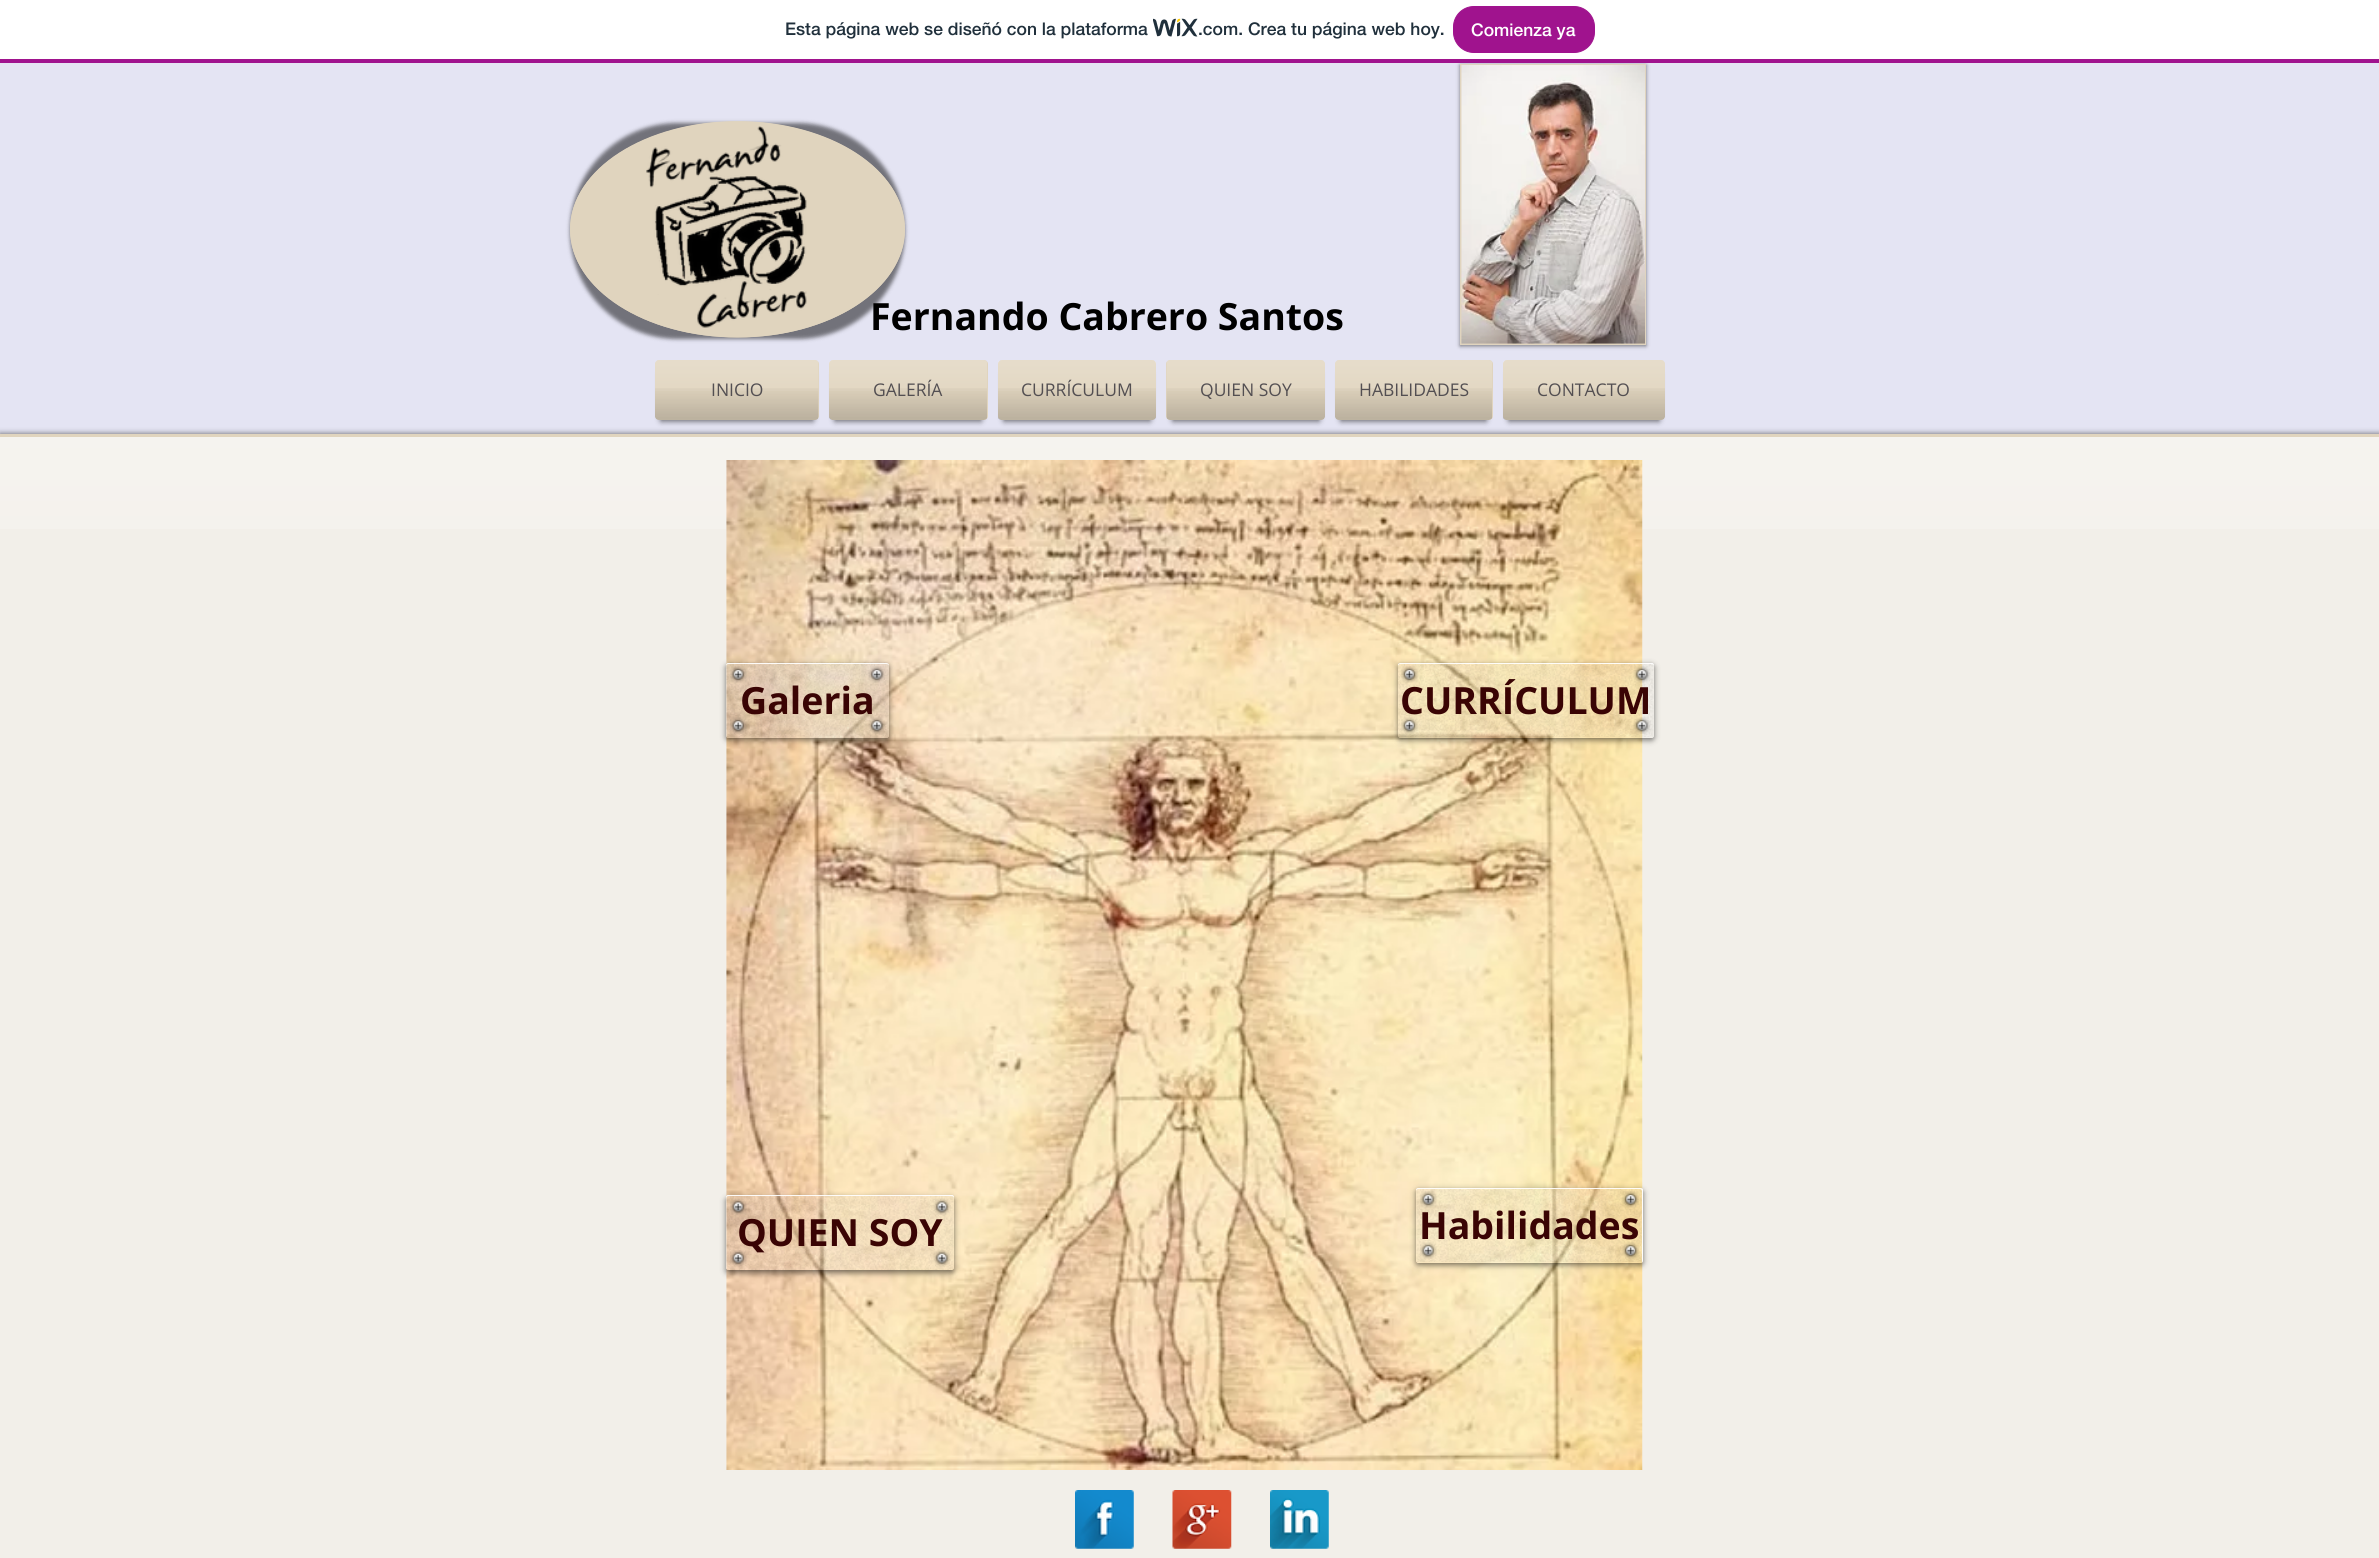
import math
import cairo


def round_path(ctx, x, y, w, h, r):
	ctx.new_sub_path()
	for i, (u, v) in enumerate([(x + w - r, y + h - r), (x + r, y + h - r), (x + r, y + r), (x + w - r, y + r)]):
		ctx.arc(u, v, r, i * math.pi / 2, (i + 1) * math.pi / 2)
	ctx.close_path()

def blur_box(ctx, x, y, w, h, r, blur, alpha):
	ctx.push_group_with_content(cairo.CONTENT_ALPHA)
	ctx.set_operator(cairo.OPERATOR_SOURCE)
	for i in range(15, -16, -2):
		e = blur * i / 6
		if min(w, h) + 2 * e > 0:
			ctx.set_source_rgba(0, 0, 0, alpha * math.erfc((i - 1) / 8.5) / 2)
			round_path(ctx, x - e, y - e, w + 2 * e, h + 2 * e, max(0, min(r + e + blur * .6, min(w, h) / 2 + e)))
			ctx.fill()
	ctx.mask(ctx.pop_group())

def paste(ctx, path, x, y, w, h):
	ctx.save()
	ctx.set_source_surface(cairo.ImageSurface.create_from_png(path), x, y)
	ctx.rectangle(x, y, w, h)
	ctx.fill()
	ctx.restore()

def draw(ctx):
	ctx.set_source_rgb(0.894, 0.894, 0.953)
	ctx.paint()
	ctx.set_source_rgb(0, 0, 0)
	blur_box(ctx, 1460, 65, 186, 281, 0, 2, 0.5)
	ctx.set_source_rgb(1, 1, 1)
	ctx.rectangle(0, 0, 2379, 59)
	ctx.fill()
	ctx.set_source_rgb(0.627, 0.075, 0.557)
	ctx.rectangle(0, 59, 2379, 4)
	ctx.fill()
	ctx.select_font_face('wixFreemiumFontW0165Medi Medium')
	ctx.set_font_size(17.5)
	ctx.set_source_rgb(0.125, 0.188, 0.235)
	ctx.move_to(785, 35)
	ctx.show_text('Esta página web se diseñó con la plataforma')
	paste(ctx, 'media/1.png', 1153, 18, 45, 19)
	ctx.move_to(1198, 35)
	ctx.show_text('.com. Crea tu página web hoy.')
	ctx.set_source_rgb(0.627, 0.075, 0.557)
	round_path(ctx, 1453.5, 6.5, 141, 46, 20.5)
	ctx.fill_preserve()
	ctx.set_line_width(1)
	ctx.stroke()
	ctx.set_source_rgb(1, 1, 1)
	ctx.move_to(1471, 36)
	ctx.show_text('Comienza ya')
	ctx.set_source_rgb(0, 0, 0)
	blur_box(ctx, 570, 123, 335, 216, 108, 2, 0.5)
	ctx.select_font_face('Open Sans', cairo.FONT_SLANT_NORMAL, cairo.FONT_WEIGHT_BOLD)
	ctx.set_font_size(37.5)
	ctx.set_source_rgb(0, 0, 0)
	ctx.move_to(870, 330)
	ctx.show_text('Fernando Cabrero Santos')
	ctx.set_source_rgb(0.878, 0.831, 0.745)
	ctx.new_path()
	ctx.move_to(737.5, 121.5)
	ctx.curve_to(830, 121.5, 905, 170, 905, 229.5)
	ctx.curve_to(905, 289, 830, 337.5, 737.5, 337.5)
	ctx.curve_to(645, 337.5, 570, 289, 570, 229.5)
	ctx.curve_to(570, 170, 645, 121.5, 737.5, 121.5)
	ctx.close_path()
	ctx.fill()
	ctx.new_path()
	ctx.move_to(737.5, 123)
	ctx.curve_to(829, 123, 903, 170.5, 903, 229.5)
	ctx.curve_to(903, 288, 829, 335.5, 737.5, 335.5)
	ctx.curve_to(646, 335.5, 572, 288, 572, 229.5)
	ctx.curve_to(572, 170.5, 646, 123, 737.5, 123)
	ctx.close_path()
	ctx.set_line_width(3.8)
	ctx.stroke()
	paste(ctx, 'media/2.png', 646, 126, 161, 202)
	ctx.rectangle(1460, 64, 186, 281)
	ctx.fill()
	paste(ctx, 'media/3.png', 1461, 65, 184, 279)
	ctx.set_source_rgb(0, 0, 0)
	blur_box(ctx, 661, 374, 152, 47, 0, 3, 0.6)
	ctx.set_source_rgb(0.878, 0.831, 0.745)
	round_path(ctx, 655, 360, 164, 60, 4)
	ctx.fill()
	paste(ctx, 'media/4.png', 655, 360, 164, 31)
	paste(ctx, 'media/5.png', 655, 388, 164, 32)
	ctx.select_font_face('Open Sans')
	ctx.set_font_size(17.5)
	ctx.set_source_rgb(0.325, 0.31, 0.322)
	ctx.move_to(711, 396)
	ctx.show_text('INICIO')
	ctx.set_source_rgb(0, 0, 0)
	blur_box(ctx, 835, 374, 146, 47, 0, 3, 0.6)
	ctx.set_source_rgb(0.878, 0.831, 0.745)
	round_path(ctx, 829, 360, 159, 60, 4)
	ctx.fill()
	paste(ctx, 'media/6.png', 829, 360, 158, 31)
	paste(ctx, 'media/7.png', 829, 388, 158, 32)
	ctx.set_source_rgb(0.325, 0.31, 0.322)
	ctx.move_to(873, 396)
	ctx.show_text('GALERÍA')
	ctx.set_source_rgb(0, 0, 0)
	blur_box(ctx, 1004, 374, 146, 47, 0, 3, 0.6)
	ctx.set_source_rgb(0.878, 0.831, 0.745)
	round_path(ctx, 998, 360, 158, 60, 4)
	ctx.fill()
	paste(ctx, 'media/8.png', 998, 360, 158, 31)
	paste(ctx, 'media/9.png', 998, 388, 158, 32)
	ctx.set_source_rgb(0.325, 0.31, 0.322)
	ctx.move_to(1021, 396)
	ctx.show_text('CURRÍCULUM')
	ctx.set_source_rgb(0, 0, 0)
	blur_box(ctx, 1173, 374, 146, 47, 0, 3, 0.6)
	ctx.set_source_rgb(0.878, 0.831, 0.745)
	round_path(ctx, 1166, 360, 159, 60, 4)
	ctx.fill()
	paste(ctx, 'media/10.png', 1166, 360, 159, 31)
	paste(ctx, 'media/11.png', 1166, 388, 159, 32)
	ctx.set_source_rgb(0.325, 0.31, 0.322)
	ctx.move_to(1200, 396)
	ctx.show_text('QUIEN SOY')
	ctx.set_source_rgb(0, 0, 0)
	blur_box(ctx, 1341, 374, 145, 47, 0, 3, 0.6)
	ctx.set_source_rgb(0.878, 0.831, 0.745)
	round_path(ctx, 1335, 360, 158, 60, 4)
	ctx.fill()
	paste(ctx, 'media/12.png', 1335, 360, 157, 31)
	paste(ctx, 'media/13.png', 1335, 388, 157, 32)
	ctx.set_source_rgb(0.325, 0.31, 0.322)
	ctx.move_to(1359, 396)
	ctx.show_text('HABILIDADES')
	ctx.set_source_rgb(0, 0, 0)
	blur_box(ctx, 1509, 374, 150, 47, 0, 3, 0.6)
	ctx.set_source_rgb(0.878, 0.831, 0.745)
	round_path(ctx, 1503, 360, 162, 60, 4)
	ctx.fill()
	paste(ctx, 'media/14.png', 1503, 360, 162, 31)
	paste(ctx, 'media/15.png', 1503, 388, 162, 32)
	ctx.set_source_rgb(0.325, 0.31, 0.322)
	ctx.move_to(1537, 396)
	ctx.show_text('CONTACTO')
	ctx.set_source_rgb(0, 0, 0)
	blur_box(ctx, 0, 434, 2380, 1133, 0, 3, 0.6)
	ctx.set_source_rgb(0.949, 0.937, 0.914)
	ctx.rectangle(0, 437, 2379, 1121)
	ctx.fill()
	paste(ctx, 'media/16.png', 0, 437, 2379, 92)
	ctx.set_source_rgb(0.878, 0.831, 0.745)
	ctx.rectangle(0, 434, 2379, 3)
	ctx.fill()
	paste(ctx, 'media/17.png', 726, 460, 917, 1010)
	ctx.save()
	ctx.set_fill_rule(cairo.FILL_RULE_EVEN_ODD)
	ctx.new_path()
	ctx.move_to(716, 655)
	ctx.line_to(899, 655)
	ctx.line_to(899, 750)
	ctx.line_to(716, 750)
	ctx.close_path()
	ctx.move_to(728.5, 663)
	ctx.line_to(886.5, 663)
	ctx.curve_to(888, 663, 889, 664, 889, 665.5)
	ctx.line_to(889, 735.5)
	ctx.curve_to(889, 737, 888, 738, 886.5, 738)
	ctx.line_to(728.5, 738)
	ctx.curve_to(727, 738, 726, 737, 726, 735.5)
	ctx.line_to(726, 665.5)
	ctx.curve_to(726, 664, 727, 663, 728.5, 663)
	ctx.close_path()
	ctx.clip()
	ctx.set_source_rgb(0, 0, 0)
	blur_box(ctx, 726, 665, 163, 75, 2.5, 3, 0.53)
	ctx.restore()
	ctx.set_source_rgba(0.82, 0.8, 0.816, 0.23)
	round_path(ctx, 726, 663, 163, 75, 2.5)
	ctx.fill()
	paste(ctx, 'media/18.png', 726, 662, 163, 76)
	ctx.set_source_rgba(1, 1, 1, 0.92)
	ctx.new_path()
	ctx.move_to(729, 664)
	ctx.line_to(886, 664)
	ctx.curve_to(888, 664, 889, 665, 889, 666)
	ctx.curve_to(889, 664, 888, 663, 886, 663)
	ctx.line_to(728, 663)
	ctx.curve_to(727, 663, 726, 664, 726, 666)
	ctx.curve_to(726, 665, 727, 664, 729, 664)
	ctx.close_path()
	ctx.fill()
	paste(ctx, 'media/19.png', 730, 666, 17, 17)
	paste(ctx, 'media/20.png', 868, 666, 18, 17)
	ctx.select_font_face('Open Sans', cairo.FONT_SLANT_NORMAL, cairo.FONT_WEIGHT_BOLD)
	ctx.set_font_size(37.5)
	ctx.set_source_rgb(0.227, 0.016, 0.016)
	ctx.move_to(740, 714)
	ctx.show_text('Galeria')
	paste(ctx, 'media/21.png', 730, 717, 17, 17)
	paste(ctx, 'media/22.png', 868, 717, 18, 17)
	ctx.save()
	ctx.set_fill_rule(cairo.FILL_RULE_EVEN_ODD)
	ctx.new_path()
	ctx.move_to(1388, 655)
	ctx.line_to(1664, 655)
	ctx.line_to(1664, 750)
	ctx.line_to(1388, 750)
	ctx.close_path()
	ctx.move_to(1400.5, 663)
	ctx.line_to(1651.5, 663)
	ctx.curve_to(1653, 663, 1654, 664, 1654, 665.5)
	ctx.line_to(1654, 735.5)
	ctx.curve_to(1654, 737, 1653, 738, 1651.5, 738)
	ctx.line_to(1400.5, 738)
	ctx.curve_to(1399, 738, 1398, 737, 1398, 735.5)
	ctx.line_to(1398, 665.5)
	ctx.curve_to(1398, 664, 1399, 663, 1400.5, 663)
	ctx.close_path()
	ctx.clip()
	ctx.set_source_rgb(0, 0, 0)
	blur_box(ctx, 1398, 665, 256, 75, 2.5, 3, 0.53)
	ctx.restore()
	ctx.set_source_rgba(0.949, 0.937, 0.914, 0.1)
	round_path(ctx, 1398, 663, 256, 75, 2.5)
	ctx.fill()
	paste(ctx, 'media/23.png', 1398, 663, 256, 74)
	ctx.set_source_rgba(1, 1, 1, 0.92)
	ctx.new_path()
	ctx.move_to(1400, 664)
	ctx.line_to(1651, 664)
	ctx.curve_to(1653, 664, 1654, 665, 1654, 666)
	ctx.curve_to(1654, 664, 1653, 663, 1652, 663)
	ctx.line_to(1400, 663)
	ctx.line_to(1398, 664)
	ctx.line_to(1398, 666)
	ctx.curve_to(1398, 665, 1399, 664, 1400, 664)
	ctx.close_path()
	ctx.fill()
	paste(ctx, 'media/24.png', 1401, 666, 17, 17)
	paste(ctx, 'media/25.png', 1633, 666, 18, 17)
	ctx.set_source_rgb(0.227, 0.016, 0.016)
	ctx.move_to(1400, 714)
	ctx.show_text('CURRÍCULUM')
	paste(ctx, 'media/26.png', 1401, 717, 17, 17)
	paste(ctx, 'media/27.png', 1633, 717, 18, 17)
	ctx.save()
	ctx.set_fill_rule(cairo.FILL_RULE_EVEN_ODD)
	ctx.new_path()
	ctx.move_to(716, 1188)
	ctx.line_to(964, 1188)
	ctx.line_to(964, 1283)
	ctx.line_to(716, 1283)
	ctx.close_path()
	ctx.move_to(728.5, 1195)
	ctx.line_to(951.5, 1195)
	ctx.curve_to(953, 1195, 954, 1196, 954, 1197.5)
	ctx.line_to(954, 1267.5)
	ctx.curve_to(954, 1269, 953, 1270, 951.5, 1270)
	ctx.line_to(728.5, 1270)
	ctx.curve_to(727, 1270, 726, 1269, 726, 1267.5)
	ctx.line_to(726, 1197.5)
	ctx.curve_to(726, 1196, 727, 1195, 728.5, 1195)
	ctx.close_path()
	ctx.clip()
	ctx.set_source_rgb(0, 0, 0)
	blur_box(ctx, 726, 1198, 228, 75, 2.5, 3, 0.53)
	ctx.restore()
	ctx.set_source_rgba(0.949, 0.937, 0.914, 0.1)
	round_path(ctx, 726, 1195, 228, 75, 2.5)
	ctx.fill()
	paste(ctx, 'media/28.png', 726, 1195, 228, 75)
	ctx.set_source_rgba(1, 1, 1, 0.92)
	ctx.new_path()
	ctx.move_to(729, 1196)
	ctx.line_to(951, 1196)
	ctx.curve_to(953, 1196, 954, 1197, 954, 1199)
	ctx.curve_to(954, 1197, 954, 1195, 952, 1195)
	ctx.line_to(728, 1195)
	ctx.curve_to(726, 1195, 726, 1197, 726, 1199)
	ctx.curve_to(726, 1197, 727, 1196, 729, 1196)
	ctx.close_path()
	ctx.fill()
	paste(ctx, 'media/29.png', 730, 1198, 17, 18)
	paste(ctx, 'media/30.png', 933, 1198, 18, 18)
	paste(ctx, 'media/31.png', 730, 1250, 17, 17)
	paste(ctx, 'media/32.png', 933, 1250, 18, 17)
	ctx.set_source_rgb(0.227, 0.016, 0.016)
	ctx.move_to(737, 1246)
	ctx.show_text('QUIEN SOY')
	ctx.save()
	ctx.set_fill_rule(cairo.FILL_RULE_EVEN_ODD)
	ctx.new_path()
	ctx.move_to(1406, 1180)
	ctx.line_to(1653, 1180)
	ctx.line_to(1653, 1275)
	ctx.line_to(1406, 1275)
	ctx.close_path()
	ctx.move_to(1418.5, 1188)
	ctx.line_to(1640.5, 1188)
	ctx.curve_to(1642, 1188, 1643, 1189, 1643, 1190.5)
	ctx.line_to(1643, 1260.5)
	ctx.curve_to(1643, 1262, 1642, 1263, 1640.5, 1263)
	ctx.line_to(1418.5, 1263)
	ctx.curve_to(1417, 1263, 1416, 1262, 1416, 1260.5)
	ctx.line_to(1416, 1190.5)
	ctx.curve_to(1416, 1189, 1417, 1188, 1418.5, 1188)
	ctx.close_path()
	ctx.clip()
	ctx.set_source_rgb(0, 0, 0)
	blur_box(ctx, 1416, 1190, 227, 75, 2.5, 3, 0.53)
	ctx.restore()
	ctx.set_source_rgba(0.949, 0.937, 0.914, 0.1)
	round_path(ctx, 1416, 1188, 227, 75, 2.5)
	ctx.fill()
	paste(ctx, 'media/33.png', 1416, 1188, 226, 74)
	ctx.set_source_rgba(1, 1, 1, 0.92)
	ctx.new_path()
	ctx.move_to(1419, 1189)
	ctx.line_to(1640, 1189)
	ctx.curve_to(1641, 1189, 1642, 1190, 1642, 1191)
	ctx.line_to(1642, 1263)
	ctx.curve_to(1642, 1262, 1643, 1261, 1643, 1260)
	ctx.line_to(1643, 1190)
	ctx.curve_to(1643, 1189, 1642, 1188, 1640, 1188)
	ctx.line_to(1418, 1188)
	ctx.curve_to(1417, 1188, 1416, 1189, 1416, 1190)
	ctx.line_to(1416, 1191)
	ctx.curve_to(1416, 1190, 1417, 1189, 1419, 1189)
	ctx.close_path()
	ctx.fill()
	paste(ctx, 'media/34.png', 1420, 1191, 17, 17)
	paste(ctx, 'media/35.png', 1622, 1191, 17, 17)
	ctx.set_source_rgb(0.227, 0.016, 0.016)
	ctx.move_to(1419, 1239)
	ctx.show_text('Habilidades')
	paste(ctx, 'media/36.png', 1420, 1242, 17, 17)
	paste(ctx, 'media/37.png', 1622, 1242, 17, 17)
	paste(ctx, 'media/38.png', 1075, 1490, 59, 59)
	paste(ctx, 'media/39.png', 1172, 1490, 60, 59)
	paste(ctx, 'media/40.png', 1270, 1490, 59, 59)


surface = cairo.ImageSurface(cairo.FORMAT_RGB24, 2379, 1558)
ctx = cairo.Context(surface)
options = cairo.FontOptions()
options.set_hint_metrics(cairo.HINT_METRICS_OFF)
options.set_hint_style(cairo.HINT_STYLE_NONE)
ctx.set_font_options(options)
ctx.set_miter_limit(4)
draw(ctx)
surface.write_to_png('image.png')
